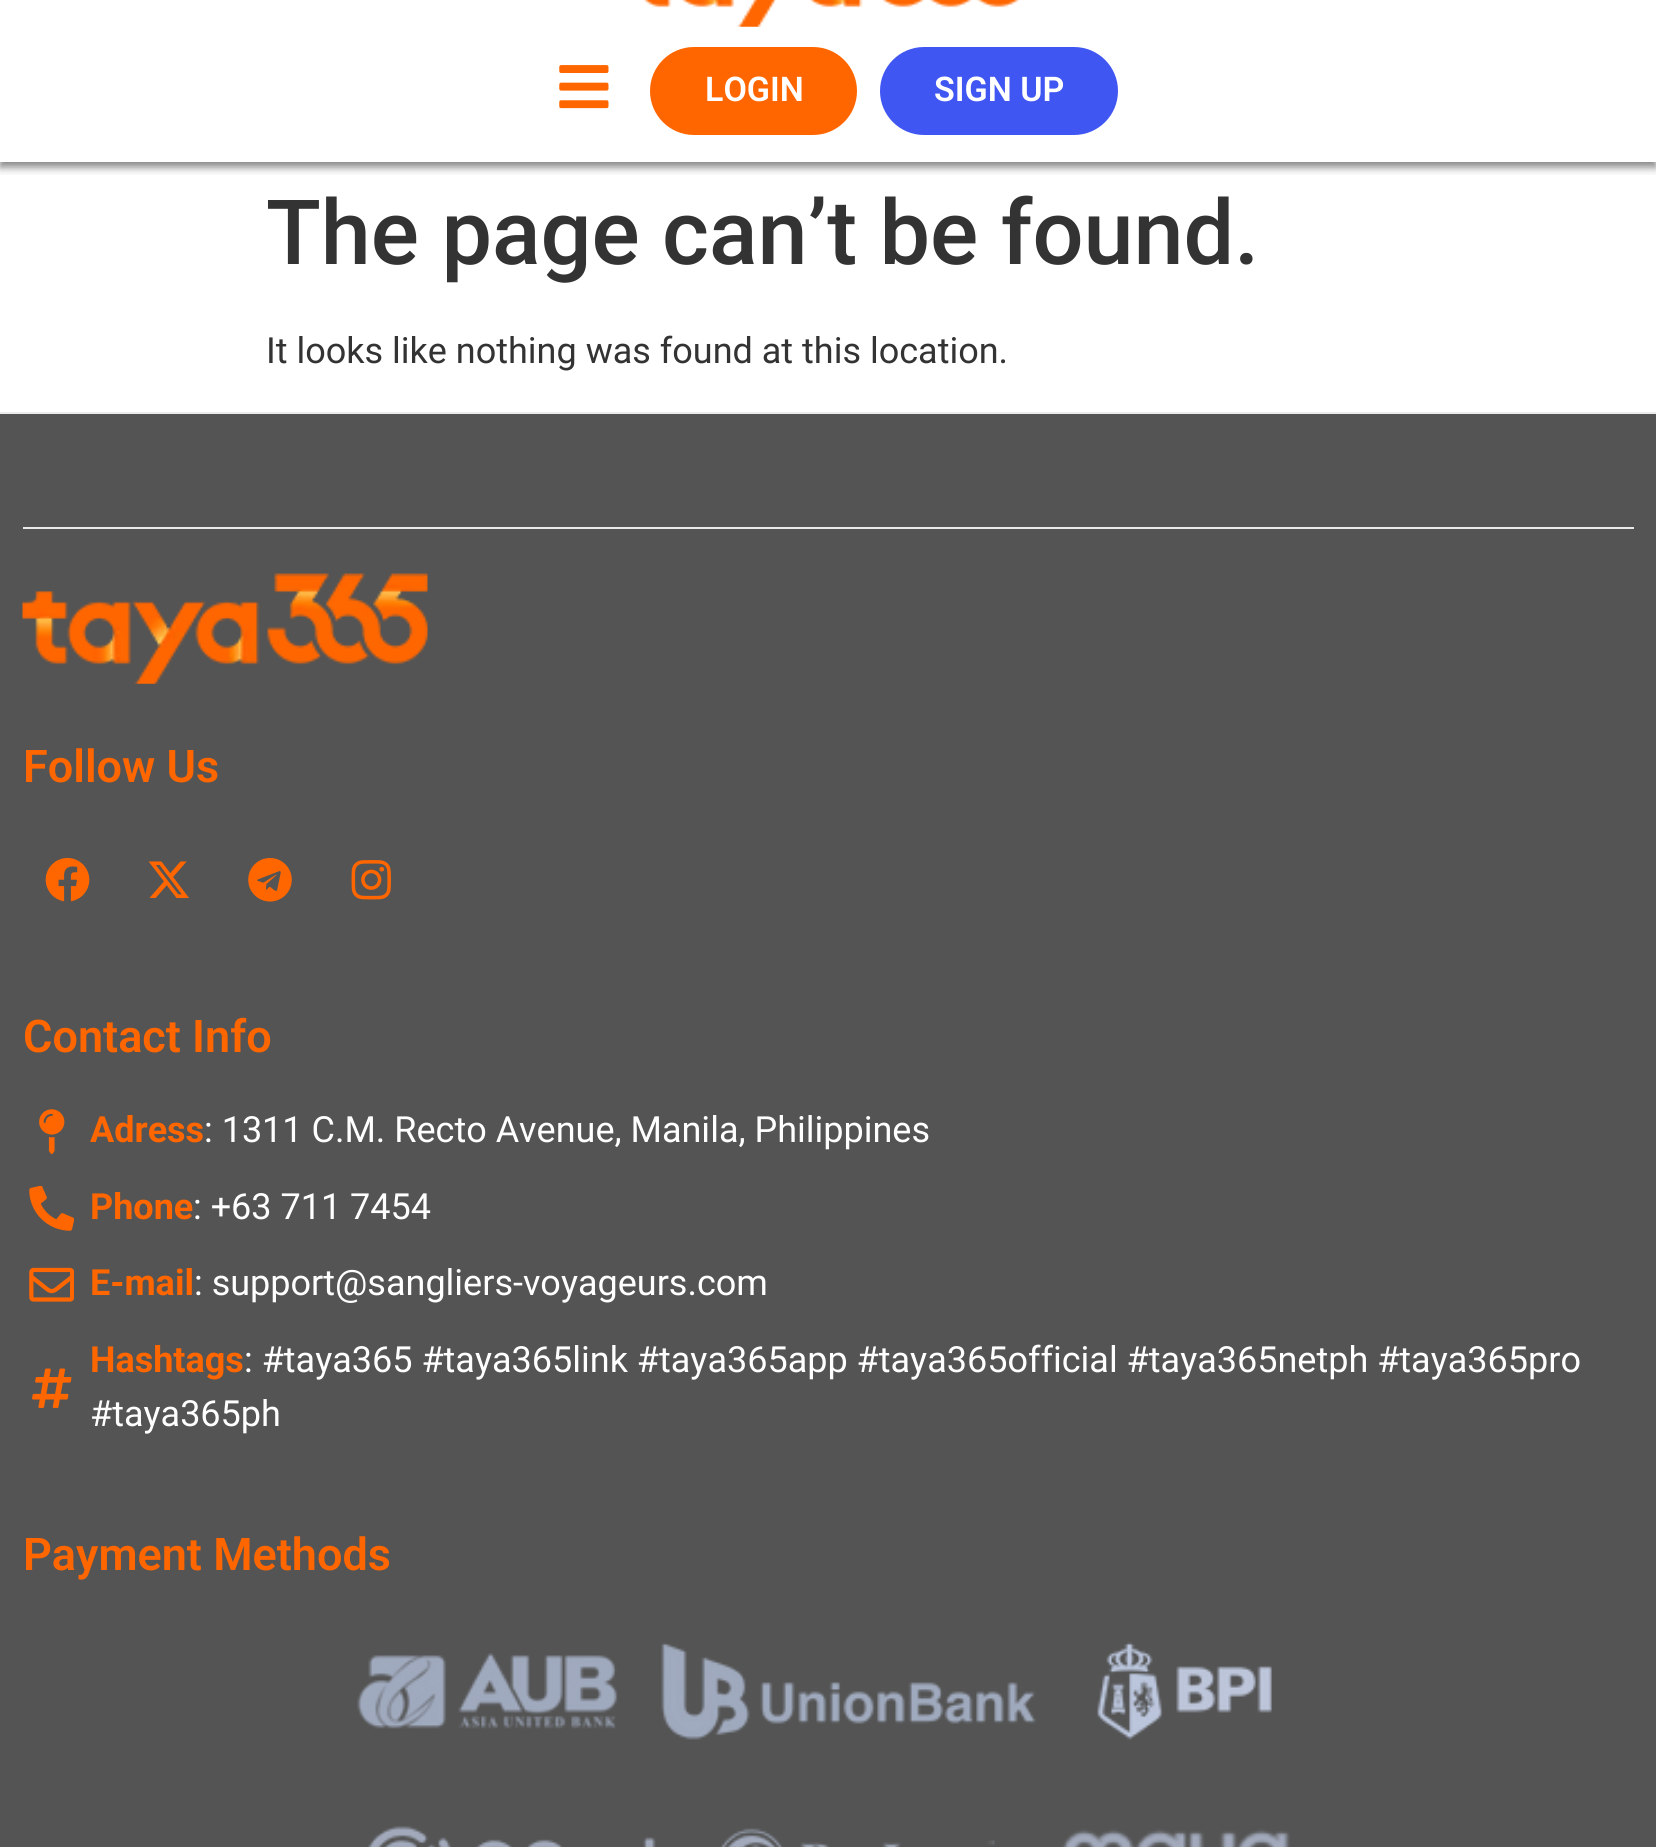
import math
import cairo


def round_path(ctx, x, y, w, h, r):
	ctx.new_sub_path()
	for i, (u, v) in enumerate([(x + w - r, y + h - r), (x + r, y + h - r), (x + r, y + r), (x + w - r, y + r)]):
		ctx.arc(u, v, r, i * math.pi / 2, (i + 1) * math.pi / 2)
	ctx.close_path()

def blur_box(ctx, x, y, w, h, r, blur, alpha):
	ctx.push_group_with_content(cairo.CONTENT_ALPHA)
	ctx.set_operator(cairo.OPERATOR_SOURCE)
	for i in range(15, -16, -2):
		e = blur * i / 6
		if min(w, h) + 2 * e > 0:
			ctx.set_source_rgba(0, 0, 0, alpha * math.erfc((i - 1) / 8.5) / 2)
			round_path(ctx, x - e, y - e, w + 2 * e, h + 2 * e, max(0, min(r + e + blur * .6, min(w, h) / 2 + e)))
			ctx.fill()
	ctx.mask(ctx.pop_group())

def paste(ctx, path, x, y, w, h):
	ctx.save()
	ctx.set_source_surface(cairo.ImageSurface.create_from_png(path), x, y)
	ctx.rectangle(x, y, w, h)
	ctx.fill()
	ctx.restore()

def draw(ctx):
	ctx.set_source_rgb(1, 1, 1)
	ctx.paint()
	ctx.save()
	ctx.rectangle(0, 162, 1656, 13)
	ctx.clip()
	ctx.set_source_rgb(0, 0, 0)
	blur_box(ctx, 0, -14, 1656, 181, 0, 4.5, 0.5)
	ctx.restore()
	paste(ctx, 'media/1.png', 643, 0, 377, 27)
	paste(ctx, 'media/2.png', 559, 65, 50, 44)
	ctx.set_source_rgb(1, 0.4, 0)
	round_path(ctx, 650, 47, 207, 88, 44)
	ctx.fill()
	ctx.select_font_face('Roboto SemiBold')
	ctx.set_font_size(34)
	ctx.set_source_rgb(1, 1, 1)
	ctx.move_to(705, 101)
	ctx.show_text('LOGIN')
	ctx.set_source_rgb(0.251, 0.337, 0.953)
	round_path(ctx, 880, 47, 238, 88, 44)
	ctx.fill()
	ctx.set_source_rgb(1, 1, 1)
	ctx.move_to(934, 101)
	ctx.show_text('SIGN UP')
	ctx.select_font_face('Roboto Medium')
	ctx.set_font_size(90)
	ctx.set_source_rgb(0.2, 0.2, 0.2)
	ctx.move_to(266, 264)
	ctx.show_text('The page can’t be found.')
	ctx.select_font_face('Roboto')
	ctx.set_font_size(36)
	ctx.move_to(266, 363)
	ctx.show_text('It looks like nothing was found at this location.')
	ctx.set_source_rgb(0.329, 0.329, 0.329)
	ctx.rectangle(0, 414, 1656, 1433)
	ctx.fill()
	ctx.set_source_rgb(0.918, 0.918, 0.918)
	ctx.rectangle(0, 412, 1656, 2)
	ctx.rectangle(23, 527, 1611, 2)
	ctx.fill()
	paste(ctx, 'media/3.png', 22, 573, 406, 111)
	ctx.select_font_face('Roboto SemiBold')
	ctx.set_font_size(45)
	ctx.set_source_rgb(1, 0.4, 0)
	ctx.move_to(23, 782)
	ctx.show_text('Follow Us')
	paste(ctx, 'media/4.png', 45, 857, 45, 45)
	paste(ctx, 'media/5.png', 148, 861, 41, 37)
	paste(ctx, 'media/6.png', 248, 858, 44, 44)
	paste(ctx, 'media/7.png', 351, 860, 40, 40)
	ctx.move_to(23, 1052)
	ctx.show_text('Contact Info')
	paste(ctx, 'media/8.png', 39, 1109, 26, 45)
	ctx.select_font_face('Roboto', cairo.FONT_SLANT_NORMAL, cairo.FONT_WEIGHT_BOLD)
	ctx.set_font_size(36)
	ctx.move_to(90, 1142)
	ctx.show_text('Adress')
	ctx.select_font_face('Roboto')
	ctx.set_source_rgb(1, 1, 1)
	ctx.move_to(204, 1142)
	ctx.show_text(': 1311 C.M. Recto Avenue, Manila, Philippines')
	paste(ctx, 'media/9.png', 29, 1186, 45, 45)
	ctx.select_font_face('Roboto', cairo.FONT_SLANT_NORMAL, cairo.FONT_WEIGHT_BOLD)
	ctx.set_source_rgb(1, 0.4, 0)
	ctx.move_to(90, 1219)
	ctx.show_text('Phone')
	ctx.select_font_face('Roboto')
	ctx.set_source_rgb(1, 1, 1)
	ctx.move_to(193, 1219)
	ctx.show_text(': +63 711 7454')
	paste(ctx, 'media/10.png', 29, 1267, 45, 35)
	ctx.select_font_face('Roboto', cairo.FONT_SLANT_NORMAL, cairo.FONT_WEIGHT_BOLD)
	ctx.set_source_rgb(1, 0.4, 0)
	ctx.move_to(90, 1295)
	ctx.show_text('E-mail')
	ctx.select_font_face('Roboto')
	ctx.set_source_rgb(1, 1, 1)
	ctx.move_to(194, 1295)
	ctx.show_text(': support@sangliers-voyageurs.com')
	paste(ctx, 'media/11.png', 32, 1368, 40, 40)
	ctx.select_font_face('Roboto', cairo.FONT_SLANT_NORMAL, cairo.FONT_WEIGHT_BOLD)
	ctx.set_source_rgb(1, 0.4, 0)
	ctx.move_to(90, 1372)
	ctx.show_text('Hashtags')
	ctx.select_font_face('Roboto')
	ctx.set_source_rgb(1, 1, 1)
	ctx.move_to(244, 1372)
	ctx.show_text(': #taya365 #taya365link #taya365app #taya365official #taya365netph #taya365pro')
	ctx.move_to(90, 1426)
	ctx.show_text('#taya365ph')
	ctx.select_font_face('Roboto SemiBold')
	ctx.set_font_size(45)
	ctx.set_source_rgb(1, 0.4, 0)
	ctx.move_to(23, 1570)
	ctx.show_text('Payment Methods')
	paste(ctx, 'media/12.png', 357, 1642, 915, 98)
	paste(ctx, 'media/13.png', 368, 1826, 922, 21)


surface = cairo.ImageSurface(cairo.FORMAT_RGB24, 1656, 1847)
ctx = cairo.Context(surface)
options = cairo.FontOptions()
options.set_hint_metrics(cairo.HINT_METRICS_OFF)
options.set_hint_style(cairo.HINT_STYLE_NONE)
ctx.set_font_options(options)
ctx.set_miter_limit(4)
draw(ctx)
surface.write_to_png('image.png')
